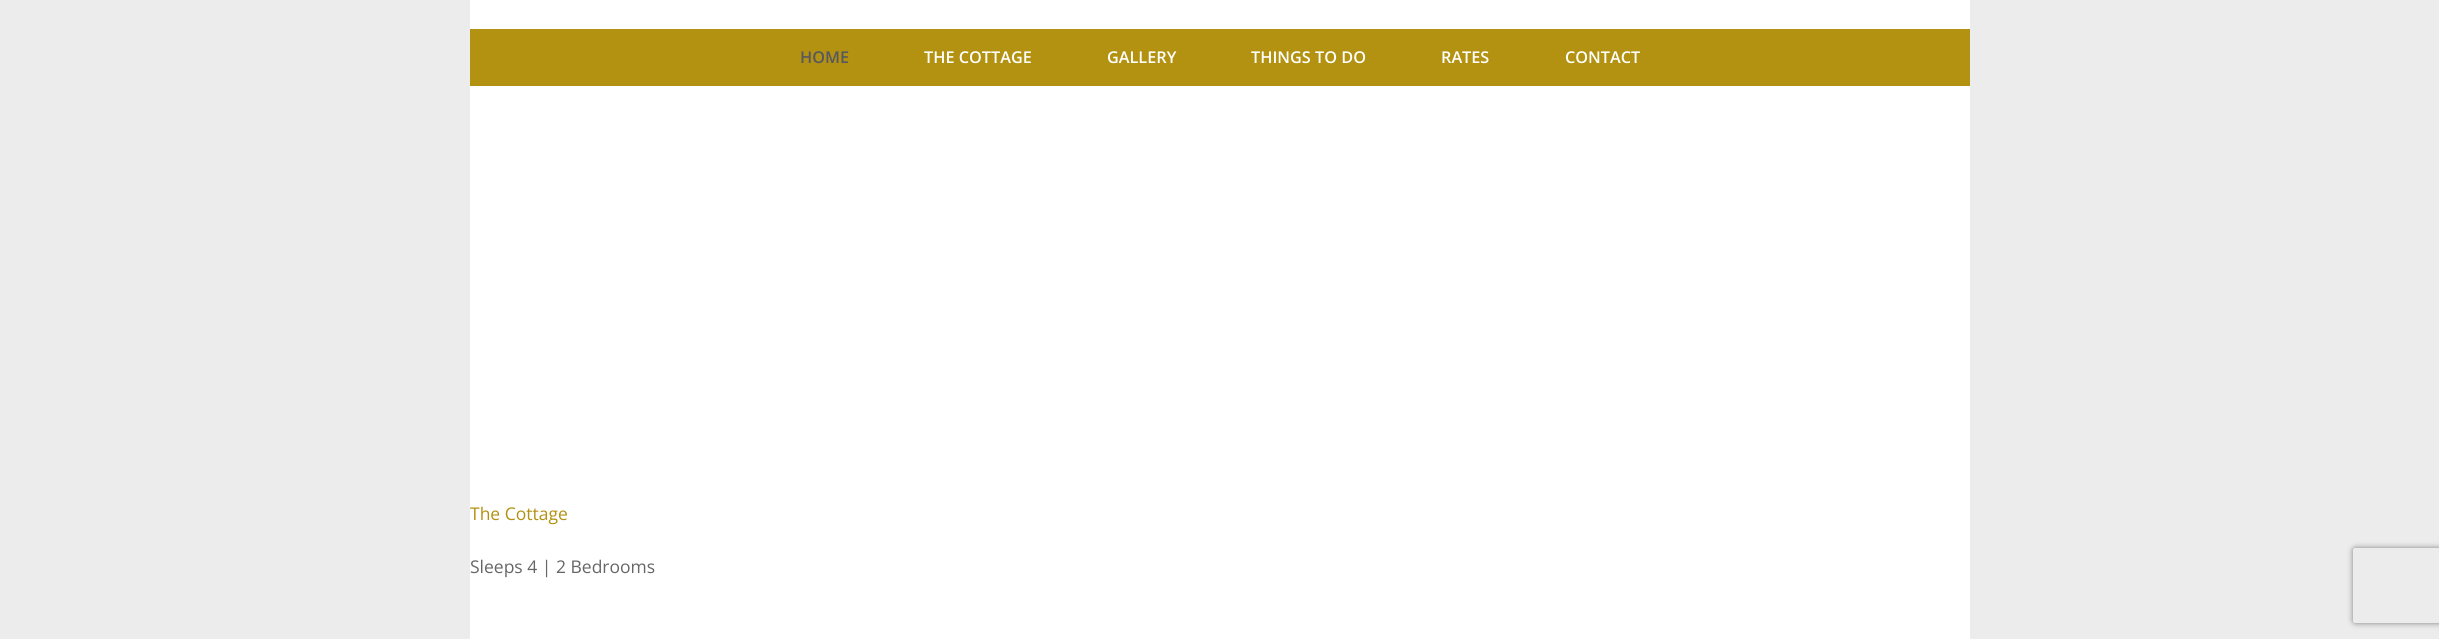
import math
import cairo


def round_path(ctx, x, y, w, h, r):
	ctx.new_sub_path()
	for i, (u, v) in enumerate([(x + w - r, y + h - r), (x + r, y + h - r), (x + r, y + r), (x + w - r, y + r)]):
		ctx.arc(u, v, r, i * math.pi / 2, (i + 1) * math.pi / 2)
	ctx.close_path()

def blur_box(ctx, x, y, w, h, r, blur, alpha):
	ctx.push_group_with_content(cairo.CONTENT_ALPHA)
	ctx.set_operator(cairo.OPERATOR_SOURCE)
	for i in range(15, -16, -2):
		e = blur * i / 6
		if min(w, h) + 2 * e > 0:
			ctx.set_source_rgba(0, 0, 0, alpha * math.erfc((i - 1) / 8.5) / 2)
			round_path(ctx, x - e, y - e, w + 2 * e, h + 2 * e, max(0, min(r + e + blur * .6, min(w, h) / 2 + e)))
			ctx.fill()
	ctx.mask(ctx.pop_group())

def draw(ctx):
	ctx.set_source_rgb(0.925, 0.925, 0.925)
	ctx.paint()
	ctx.set_source_rgb(1, 1, 1)
	ctx.rectangle(470, 0, 1500, 639)
	ctx.fill()
	ctx.set_source_rgb(0.698, 0.573, 0.063)
	ctx.rectangle(470, 29, 1500, 57)
	ctx.fill()
	ctx.select_font_face('Open Sans SemiBold')
	ctx.set_font_size(16.25)
	ctx.set_source_rgb(0.341, 0.341, 0.376)
	ctx.move_to(800, 63)
	ctx.show_text('HOME')
	ctx.set_source_rgb(1, 1, 1)
	for x, y, s in [
		(924, 63, 'THE COTTAGE'),
		(1107, 63, 'GALLERY'),
		(1251, 63, 'THINGS TO DO'),
		(1441, 63, 'RATES'),
		(1565, 63, 'CONTACT'),
	]:
		ctx.move_to(x, y)
		ctx.show_text(s)
	ctx.select_font_face('Open Sans')
	ctx.set_font_size(17.5)
	ctx.set_source_rgb(0.698, 0.573, 0.063)
	ctx.move_to(470, 520)
	ctx.show_text('The Cottage')
	ctx.set_source_rgb(0.4, 0.4, 0.4)
	ctx.move_to(470, 573)
	ctx.show_text('Sleeps 4 | 2 Bedrooms')
	ctx.save()
	ctx.set_fill_rule(cairo.FILL_RULE_EVEN_ODD)
	ctx.new_path()
	ctx.move_to(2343, 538)
	ctx.line_to(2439, 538)
	ctx.line_to(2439, 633)
	ctx.line_to(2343, 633)
	ctx.close_path()
	ctx.move_to(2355.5, 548)
	ctx.line_to(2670.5, 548)
	ctx.curve_to(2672, 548, 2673, 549, 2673, 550.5)
	ctx.line_to(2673, 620.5)
	ctx.curve_to(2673, 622, 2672, 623, 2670.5, 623)
	ctx.line_to(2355.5, 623)
	ctx.curve_to(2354, 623, 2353, 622, 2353, 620.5)
	ctx.line_to(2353, 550.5)
	ctx.curve_to(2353, 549, 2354, 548, 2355.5, 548)
	ctx.close_path()
	ctx.clip()
	ctx.set_source_rgb(0.502, 0.502, 0.502)
	blur_box(ctx, 2353, 548, 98, 75, 2.5, 3, 1)
	ctx.restore()


surface = cairo.ImageSurface(cairo.FORMAT_RGB24, 2439, 639)
ctx = cairo.Context(surface)
options = cairo.FontOptions()
options.set_hint_metrics(cairo.HINT_METRICS_OFF)
options.set_hint_style(cairo.HINT_STYLE_NONE)
ctx.set_font_options(options)
ctx.set_miter_limit(4)
draw(ctx)
surface.write_to_png('image.png')
